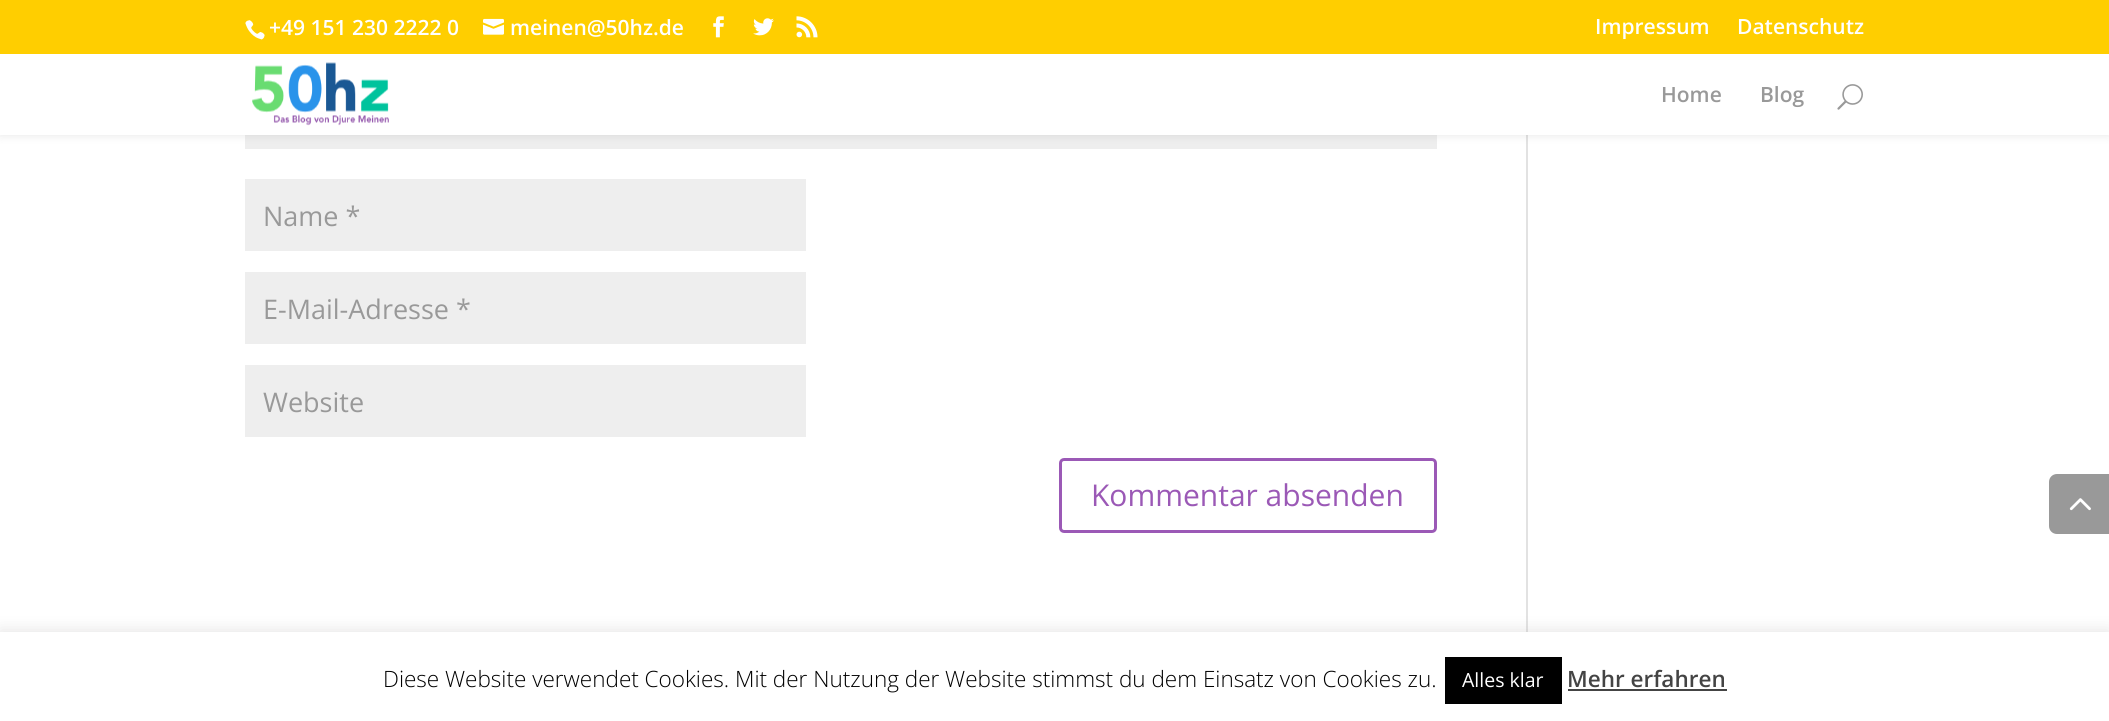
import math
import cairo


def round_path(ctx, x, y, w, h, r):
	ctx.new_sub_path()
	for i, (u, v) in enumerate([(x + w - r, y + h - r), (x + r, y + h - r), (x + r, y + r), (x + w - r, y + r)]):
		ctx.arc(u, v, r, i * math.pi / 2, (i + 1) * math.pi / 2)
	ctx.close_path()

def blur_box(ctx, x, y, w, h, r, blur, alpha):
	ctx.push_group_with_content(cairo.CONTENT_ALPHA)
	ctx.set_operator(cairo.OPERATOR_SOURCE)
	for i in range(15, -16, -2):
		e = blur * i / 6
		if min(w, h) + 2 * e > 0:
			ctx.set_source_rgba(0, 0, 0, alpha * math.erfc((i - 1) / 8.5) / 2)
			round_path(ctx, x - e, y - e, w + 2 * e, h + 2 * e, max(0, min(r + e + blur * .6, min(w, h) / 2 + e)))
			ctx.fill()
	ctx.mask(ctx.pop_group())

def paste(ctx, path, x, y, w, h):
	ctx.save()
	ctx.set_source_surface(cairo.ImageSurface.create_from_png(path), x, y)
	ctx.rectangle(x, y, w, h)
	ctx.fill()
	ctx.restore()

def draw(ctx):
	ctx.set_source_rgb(1, 1, 1)
	ctx.paint()
	ctx.set_source_rgb(0.933, 0.933, 0.933)
	ctx.rectangle(245, 135, 1192, 14)
	ctx.fill()
	ctx.set_source_rgb(0.886, 0.886, 0.886)
	ctx.rectangle(1526, 135, 2, 497)
	ctx.fill()
	ctx.set_source_rgb(0, 0, 0)
	blur_box(ctx, 0, 54, 2109, 81, 0, 5, 0.1)
	ctx.set_source_rgb(1, 0.808, 0)
	ctx.rectangle(0, 0, 2109, 54)
	ctx.fill()
	paste(ctx, 'media/1.png', 245, 20, 20, 20)
	ctx.select_font_face('Open Sans SemiBold')
	ctx.set_font_size(21)
	ctx.set_source_rgb(1, 1, 1)
	ctx.move_to(269, 35)
	ctx.show_text('+49 151 230 2222 0')
	paste(ctx, 'media/2.png', 483, 18, 21, 17)
	ctx.move_to(510, 35)
	ctx.show_text('meinen@50hz.de')
	paste(ctx, 'media/3.png', 713, 16, 11, 22)
	paste(ctx, 'media/4.png', 753, 18, 21, 18)
	paste(ctx, 'media/5.png', 796, 16, 22, 22)
	ctx.move_to(1595, 34)
	ctx.show_text('Impressum')
	ctx.move_to(1737, 34)
	ctx.show_text('Datenschutz')
	ctx.rectangle(0, 54, 2109, 81)
	ctx.fill()
	paste(ctx, 'media/6.png', 252, 62, 137, 64)
	ctx.set_source_rgb(0.6, 0.6, 0.6)
	ctx.move_to(1661, 102)
	ctx.show_text('Home')
	ctx.move_to(1760, 102)
	ctx.show_text('Blog')
	paste(ctx, 'media/7.png', 1837, 84, 26, 26)
	ctx.set_source_rgb(0.933, 0.933, 0.933)
	ctx.rectangle(245, 179, 561, 72)
	ctx.fill()
	ctx.select_font_face('Open Sans')
	ctx.set_font_size(27)
	ctx.set_source_rgb(0.6, 0.6, 0.6)
	ctx.move_to(263, 226)
	ctx.show_text('Name *')
	ctx.set_source_rgb(0.933, 0.933, 0.933)
	ctx.rectangle(245, 272, 561, 72)
	ctx.fill()
	ctx.set_source_rgb(0.6, 0.6, 0.6)
	ctx.move_to(263, 319)
	ctx.show_text('E-Mail-Adresse *')
	ctx.set_source_rgb(0.933, 0.933, 0.933)
	ctx.rectangle(245, 365, 561, 72)
	ctx.fill()
	ctx.set_source_rgb(0.6, 0.6, 0.6)
	ctx.move_to(263, 412)
	ctx.show_text('Website')
	round_path(ctx, 1060.5, 459.5, 375, 72, 3.5)
	ctx.set_source_rgb(0.608, 0.349, 0.714)
	ctx.set_line_width(3)
	ctx.stroke()
	ctx.set_font_size(30)
	ctx.move_to(1091, 506)
	ctx.show_text('Kommentar absenden')
	ctx.set_source_rgb(0.6, 0.6, 0.6)
	ctx.new_path()
	ctx.move_to(2057, 474)
	ctx.line_to(2109, 474)
	ctx.line_to(2109, 534)
	ctx.line_to(2057, 534)
	ctx.curve_to(2052.5, 534, 2049, 530.5, 2049, 526)
	ctx.line_to(2049, 482)
	ctx.curve_to(2049, 477.5, 2052.5, 474, 2057, 474)
	ctx.close_path()
	ctx.fill()
	paste(ctx, 'media/8.png', 2069, 498, 22, 13)
	ctx.set_source_rgb(0.675, 0.671, 0.671)
	blur_box(ctx, 0, 630, 2109, 90, 0, 7.5, 0.3)
	ctx.set_source_rgb(1, 1, 1)
	ctx.rectangle(0, 632, 2109, 89)
	ctx.fill()
	ctx.select_font_face('Open Sans Light')
	ctx.set_font_size(22.5)
	ctx.set_source_rgb(0, 0, 0)
	ctx.move_to(383, 687)
	ctx.show_text('Diese Website verwendet Cookies. Mit der Nutzung der Website stimmst du dem Einsatz von Cookies zu.')
	ctx.rectangle(1445, 657, 117, 47)
	ctx.fill()
	ctx.select_font_face('Open Sans')
	ctx.set_font_size(19.5)
	ctx.set_source_rgb(1, 1, 1)
	ctx.move_to(1462, 687)
	ctx.show_text('Alles klar')
	ctx.select_font_face('Open Sans SemiBold')
	ctx.set_font_size(22.5)
	ctx.set_source_rgb(0.267, 0.267, 0.267)
	ctx.move_to(1567, 687)
	ctx.show_text('Mehr erfahren')
	ctx.rectangle(1568, 689, 159, 2)
	ctx.fill()


surface = cairo.ImageSurface(cairo.FORMAT_RGB24, 2109, 721)
ctx = cairo.Context(surface)
options = cairo.FontOptions()
options.set_hint_metrics(cairo.HINT_METRICS_OFF)
options.set_hint_style(cairo.HINT_STYLE_NONE)
ctx.set_font_options(options)
ctx.set_miter_limit(4)
draw(ctx)
surface.write_to_png('image.png')
